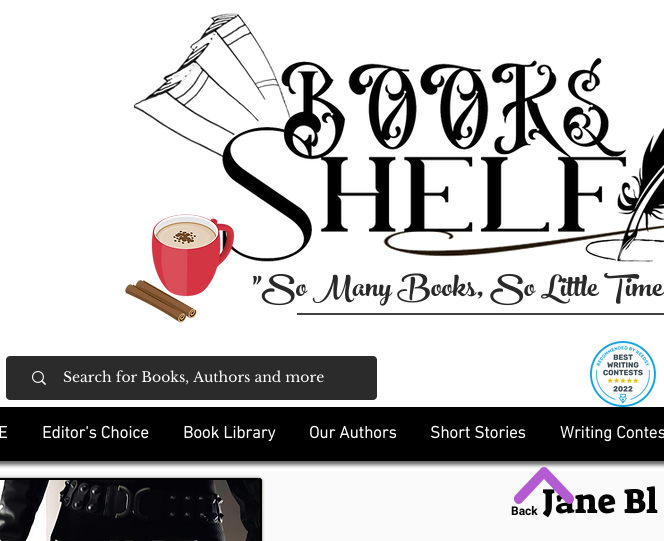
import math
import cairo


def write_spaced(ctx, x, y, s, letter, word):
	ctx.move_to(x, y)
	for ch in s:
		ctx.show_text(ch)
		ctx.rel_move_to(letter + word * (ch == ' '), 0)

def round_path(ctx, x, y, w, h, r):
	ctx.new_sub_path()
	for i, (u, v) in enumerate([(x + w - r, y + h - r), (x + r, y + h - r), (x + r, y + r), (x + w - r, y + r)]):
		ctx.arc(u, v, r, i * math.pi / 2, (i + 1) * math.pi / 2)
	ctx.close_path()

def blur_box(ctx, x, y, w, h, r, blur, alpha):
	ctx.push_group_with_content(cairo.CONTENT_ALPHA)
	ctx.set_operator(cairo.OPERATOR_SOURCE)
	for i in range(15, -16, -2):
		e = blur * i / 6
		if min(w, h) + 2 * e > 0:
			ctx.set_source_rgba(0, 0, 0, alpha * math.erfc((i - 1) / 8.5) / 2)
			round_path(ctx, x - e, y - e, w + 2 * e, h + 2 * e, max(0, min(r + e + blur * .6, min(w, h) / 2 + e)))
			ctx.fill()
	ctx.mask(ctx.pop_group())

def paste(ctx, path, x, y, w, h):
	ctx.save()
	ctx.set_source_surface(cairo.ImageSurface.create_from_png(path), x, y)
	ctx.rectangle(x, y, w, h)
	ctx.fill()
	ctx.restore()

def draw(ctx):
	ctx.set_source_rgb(1, 1, 1)
	ctx.paint()
	paste(ctx, 'media/2.png', 134, 13, 530, 249)
	paste(ctx, 'media/1.png', 125, 214, 110, 109)
	ctx.select_font_face('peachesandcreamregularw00')
	ctx.set_font_size(45)
	ctx.set_source_rgb(0.161, 0.161, 0.161)
	write_spaced(ctx, 253, 296, '"So Many Books, So Little Time', 0.45, 0)
	ctx.set_source_rgb(0.259, 0.259, 0.259)
	ctx.rectangle(297, 313, 367, 2)
	ctx.fill()
	ctx.set_source_rgb(0.169, 0.169, 0.169)
	round_path(ctx, 6, 356, 371, 44, 4)
	ctx.fill()
	paste(ctx, 'media/3.png', 32, 371, 14, 14)
	ctx.select_font_face('Libre Baskerville')
	ctx.set_font_size(14)
	ctx.set_source_rgb(1, 1, 1)
	ctx.move_to(63, 382)
	ctx.show_text('Search for Books, Authors and more')
	paste(ctx, 'media/4.png', 590, 341, 66, 66)
	ctx.set_source_rgb(0, 0, 0)
	blur_box(ctx, -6, 411, 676, 54, 0, 2, 0.6)
	ctx.set_source_rgb(0, 0, 0)
	ctx.rectangle(0, 407, 664, 54)
	ctx.fill()
	ctx.select_font_face('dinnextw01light', cairo.FONT_SLANT_NORMAL, cairo.FONT_WEIGHT_BOLD)
	ctx.set_font_size(17)
	ctx.set_source_rgb(1, 1, 1)
	for x, y, s in [
		(-2, 438, 'E'),
		(42, 438, 'Editor\'s Choice'),
		(183, 438, 'Book Library'),
		(309, 438, 'Our Authors'),
		(430, 438, 'Short Stories'),
		(560, 438, 'Writing Contes'),
	]:
		ctx.move_to(x, y)
		ctx.show_text(s)
	ctx.set_source_rgb(0.98, 0.98, 0.98)
	ctx.rectangle(0, 471, 664, 70)
	ctx.fill()
	ctx.select_font_face('Suez One')
	ctx.set_font_size(35)
	ctx.set_source_rgb(0, 0, 0)
	ctx.move_to(542, 513)
	ctx.show_text('Jane Bl')
	paste(ctx, 'media/5.png', 514, 467, 60, 37)
	ctx.select_font_face('Roboto', cairo.FONT_SLANT_NORMAL, cairo.FONT_WEIGHT_BOLD)
	ctx.set_font_size(12)
	ctx.move_to(511, 515)
	ctx.show_text('Back')
	ctx.set_source_rgb(0, 0, 0)
	blur_box(ctx, -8, 478, 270, 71, 3, 1.5, 0.5)
	ctx.set_source_rgb(0, 0, 0)
	ctx.new_path()
	ctx.move_to(0, 478)
	ctx.line_to(259, 478)
	ctx.curve_to(260.5, 478, 262, 479.5, 262, 481)
	ctx.line_to(262, 541)
	ctx.curve_to(262, 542.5, 260.5, 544, 259, 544)
	ctx.line_to(0, 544)
	ctx.close_path()
	ctx.fill()
	round_path(ctx, -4, 479, 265, 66, 2)
	ctx.stroke()
	paste(ctx, 'media/6.png', 0, 480, 260, 61)


surface = cairo.ImageSurface(cairo.FORMAT_RGB24, 664, 541)
ctx = cairo.Context(surface)
options = cairo.FontOptions()
options.set_hint_metrics(cairo.HINT_METRICS_OFF)
options.set_hint_style(cairo.HINT_STYLE_NONE)
ctx.set_font_options(options)
ctx.set_miter_limit(4)
draw(ctx)
surface.write_to_png('image.png')
